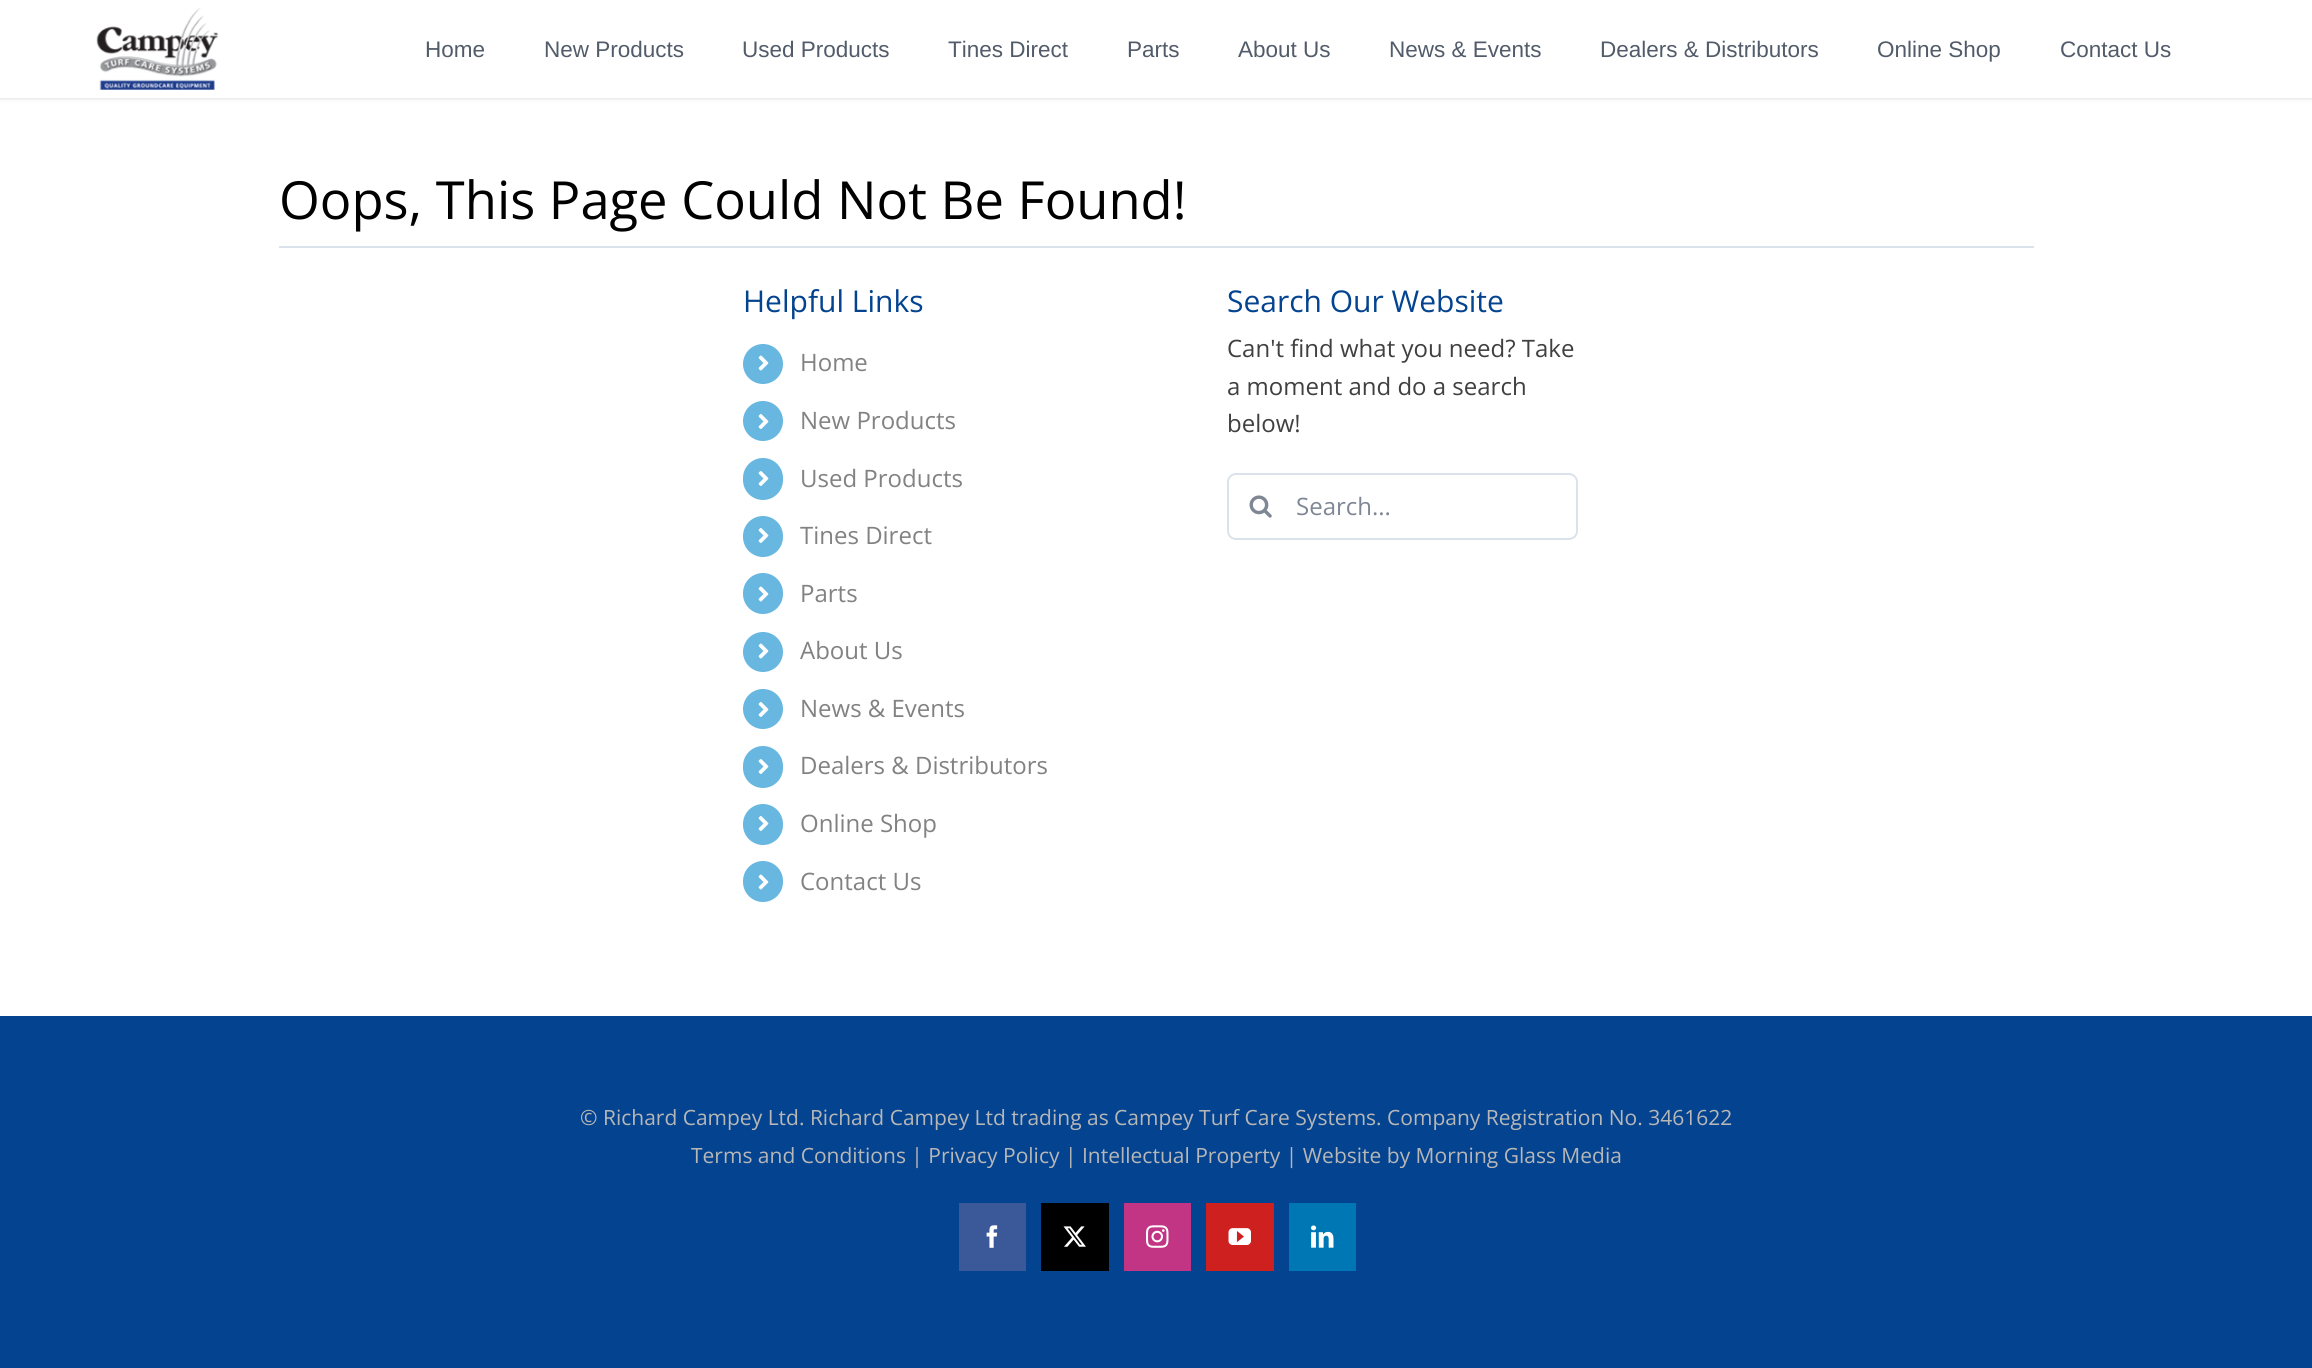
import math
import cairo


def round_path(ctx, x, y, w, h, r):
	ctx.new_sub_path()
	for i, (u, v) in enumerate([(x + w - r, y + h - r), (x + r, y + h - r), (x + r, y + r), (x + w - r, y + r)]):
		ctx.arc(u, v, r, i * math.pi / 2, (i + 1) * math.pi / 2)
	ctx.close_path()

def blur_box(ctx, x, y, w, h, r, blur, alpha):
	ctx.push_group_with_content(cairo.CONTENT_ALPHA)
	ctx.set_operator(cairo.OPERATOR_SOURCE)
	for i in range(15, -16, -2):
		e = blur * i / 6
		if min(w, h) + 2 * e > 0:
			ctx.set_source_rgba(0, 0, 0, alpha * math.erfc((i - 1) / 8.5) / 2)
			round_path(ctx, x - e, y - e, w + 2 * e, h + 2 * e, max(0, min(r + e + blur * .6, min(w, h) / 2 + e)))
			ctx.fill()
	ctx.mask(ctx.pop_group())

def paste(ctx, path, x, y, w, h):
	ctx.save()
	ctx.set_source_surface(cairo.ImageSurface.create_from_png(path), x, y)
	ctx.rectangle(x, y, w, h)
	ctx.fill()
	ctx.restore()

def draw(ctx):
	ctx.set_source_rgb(1, 1, 1)
	ctx.paint()
	ctx.set_source_rgb(0, 0, 0)
	blur_box(ctx, 0, 2, 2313, 97, 0, 2, 0.12)
	ctx.set_source_rgb(1, 1, 1)
	ctx.rectangle(0, 0, 2312, 98)
	ctx.fill()
	paste(ctx, 'media/1.png', 96, 8, 122, 82)
	ctx.select_font_face('Liberation Sans')
	ctx.set_font_size(22.5)
	ctx.set_source_rgb(0.318, 0.357, 0.412)
	for x, y, s in [
		(425, 57, 'Home'),
		(544, 57, 'New Products'),
		(742, 57, 'Used Products'),
		(948, 57, 'Tines Direct'),
		(1127, 57, 'Parts'),
		(1238, 57, 'About Us'),
		(1389, 57, 'News & Events'),
		(1600, 57, 'Dealers & Distributors'),
		(1877, 57, 'Online Shop'),
		(2060, 57, 'Contact Us'),
	]:
		ctx.move_to(x, y)
		ctx.show_text(s)
	ctx.set_source_rgb(0.859, 0.886, 0.918)
	ctx.rectangle(279, 246, 1755, 2)
	ctx.fill()
	ctx.select_font_face('Open Sans')
	ctx.set_font_size(52.5)
	ctx.set_source_rgb(0, 0, 0)
	ctx.move_to(279, 219)
	ctx.show_text('Oops, This Page Could Not Be Found!')
	ctx.set_font_size(30)
	ctx.set_source_rgb(0.012, 0.263, 0.561)
	ctx.move_to(743, 312)
	ctx.show_text('Helpful Links')
	ctx.set_source_rgb(0.404, 0.718, 0.882)
	ctx.new_path()
	ctx.arc(763, 364, 20, 0, 2 * math.pi)
	ctx.fill()
	paste(ctx, 'media/2.png', 758, 355, 11, 16)
	ctx.set_font_size(24)
	ctx.set_source_rgb(0.51, 0.51, 0.51)
	ctx.move_to(800, 371)
	ctx.show_text('Home')
	ctx.set_source_rgb(0.404, 0.718, 0.882)
	ctx.new_path()
	ctx.arc(763, 421, 20, 0, 2 * math.pi)
	ctx.fill()
	paste(ctx, 'media/3.png', 758, 414, 11, 15)
	ctx.set_source_rgb(0.51, 0.51, 0.51)
	ctx.move_to(800, 429)
	ctx.show_text('New Products')
	ctx.set_source_rgb(0.404, 0.718, 0.882)
	round_path(ctx, 743, 458, 40, 42, 20)
	ctx.fill()
	paste(ctx, 'media/3.png', 758, 471, 11, 15)
	ctx.set_source_rgb(0.51, 0.51, 0.51)
	ctx.move_to(800, 487)
	ctx.show_text('Used Products')
	ctx.set_source_rgb(0.404, 0.718, 0.882)
	round_path(ctx, 743, 516, 40, 41, 20)
	ctx.fill()
	paste(ctx, 'media/3.png', 758, 528, 11, 15)
	ctx.set_source_rgb(0.51, 0.51, 0.51)
	ctx.move_to(800, 544)
	ctx.show_text('Tines Direct')
	ctx.set_source_rgb(0.404, 0.718, 0.882)
	round_path(ctx, 743, 573, 40, 41, 20)
	ctx.fill()
	paste(ctx, 'media/2.png', 758, 586, 11, 16)
	ctx.set_source_rgb(0.51, 0.51, 0.51)
	ctx.move_to(800, 602)
	ctx.show_text('Parts')
	ctx.set_source_rgb(0.404, 0.718, 0.882)
	ctx.new_path()
	ctx.arc(763, 652, 20, 0, 2 * math.pi)
	ctx.fill()
	paste(ctx, 'media/2.png', 758, 643, 11, 16)
	ctx.set_source_rgb(0.51, 0.51, 0.51)
	ctx.move_to(800, 659)
	ctx.show_text('About Us')
	ctx.set_source_rgb(0.404, 0.718, 0.882)
	ctx.new_path()
	ctx.arc(763, 709, 20, 0, 2 * math.pi)
	ctx.fill()
	paste(ctx, 'media/3.png', 758, 702, 11, 15)
	ctx.set_source_rgb(0.51, 0.51, 0.51)
	ctx.move_to(800, 717)
	ctx.show_text('News & Events')
	ctx.set_source_rgb(0.404, 0.718, 0.882)
	round_path(ctx, 743, 746, 40, 42, 20)
	ctx.fill()
	paste(ctx, 'media/3.png', 758, 759, 11, 15)
	ctx.set_source_rgb(0.51, 0.51, 0.51)
	ctx.move_to(800, 774)
	ctx.show_text('Dealers & Distributors')
	ctx.set_source_rgb(0.404, 0.718, 0.882)
	round_path(ctx, 743, 804, 40, 41, 20)
	ctx.fill()
	paste(ctx, 'media/3.png', 758, 816, 11, 15)
	ctx.set_source_rgb(0.51, 0.51, 0.51)
	ctx.move_to(800, 832)
	ctx.show_text('Online Shop')
	ctx.set_source_rgb(0.404, 0.718, 0.882)
	round_path(ctx, 743, 861, 40, 41, 20)
	ctx.fill()
	paste(ctx, 'media/2.png', 758, 874, 11, 16)
	ctx.set_source_rgb(0.51, 0.51, 0.51)
	ctx.move_to(800, 890)
	ctx.show_text('Contact Us')
	ctx.set_font_size(30)
	ctx.set_source_rgb(0.012, 0.263, 0.561)
	ctx.move_to(1227, 312)
	ctx.show_text('Search Our Website')
	ctx.set_font_size(24)
	ctx.set_source_rgb(0.251, 0.251, 0.251)
	for x, y, s in [
		(1227, 357, 'Can\'t find what you need? Take'),
		(1227, 395, 'a moment and do a search'),
		(1227, 432, 'below!'),
	]:
		ctx.move_to(x, y)
		ctx.show_text(s)
	round_path(ctx, 1228, 474, 349, 65, 8)
	ctx.set_source_rgb(0.859, 0.886, 0.918)
	ctx.stroke()
	paste(ctx, 'media/4.png', 1249, 495, 23, 23)
	ctx.set_source_rgb(0.498, 0.529, 0.584)
	ctx.move_to(1296, 515)
	ctx.show_text('Search...')
	ctx.set_source_rgb(0.012, 0.263, 0.561)
	ctx.rectangle(0, 1016, 2312, 352)
	ctx.fill()
	ctx.set_font_size(21)
	ctx.set_source_rgb(0.718, 0.718, 0.718)
	ctx.move_to(580, 1125)
	ctx.show_text('© Richard Campey Ltd. Richard Campey Ltd trading as Campey Turf Care Systems. Company Registration No. 3461622')
	ctx.move_to(691, 1163)
	ctx.show_text('Terms and Conditions | Privacy Policy | Intellectual Property | Website by Morning Glass Media')
	ctx.set_source_rgb(0.231, 0.349, 0.596)
	ctx.rectangle(959, 1203, 67, 68)
	ctx.fill()
	paste(ctx, 'media/5.png', 986, 1225, 12, 23)
	ctx.set_source_rgb(0, 0, 0)
	ctx.rectangle(1041, 1203, 68, 68)
	ctx.fill()
	paste(ctx, 'media/6.png', 1063, 1226, 23, 21)
	ctx.set_source_rgb(0.757, 0.208, 0.518)
	ctx.rectangle(1124, 1203, 67, 68)
	ctx.fill()
	paste(ctx, 'media/7.png', 1146, 1225, 23, 23)
	ctx.set_source_rgb(0.804, 0.125, 0.122)
	ctx.rectangle(1206, 1203, 68, 68)
	ctx.fill()
	paste(ctx, 'media/8.png', 1228, 1228, 23, 17)
	ctx.set_source_rgb(0, 0.467, 0.71)
	ctx.rectangle(1289, 1203, 67, 68)
	ctx.fill()
	paste(ctx, 'media/9.png', 1311, 1225, 23, 23)


surface = cairo.ImageSurface(cairo.FORMAT_RGB24, 2312, 1368)
ctx = cairo.Context(surface)
options = cairo.FontOptions()
options.set_hint_metrics(cairo.HINT_METRICS_OFF)
options.set_hint_style(cairo.HINT_STYLE_NONE)
ctx.set_font_options(options)
ctx.set_miter_limit(4)
draw(ctx)
surface.write_to_png('image.png')
